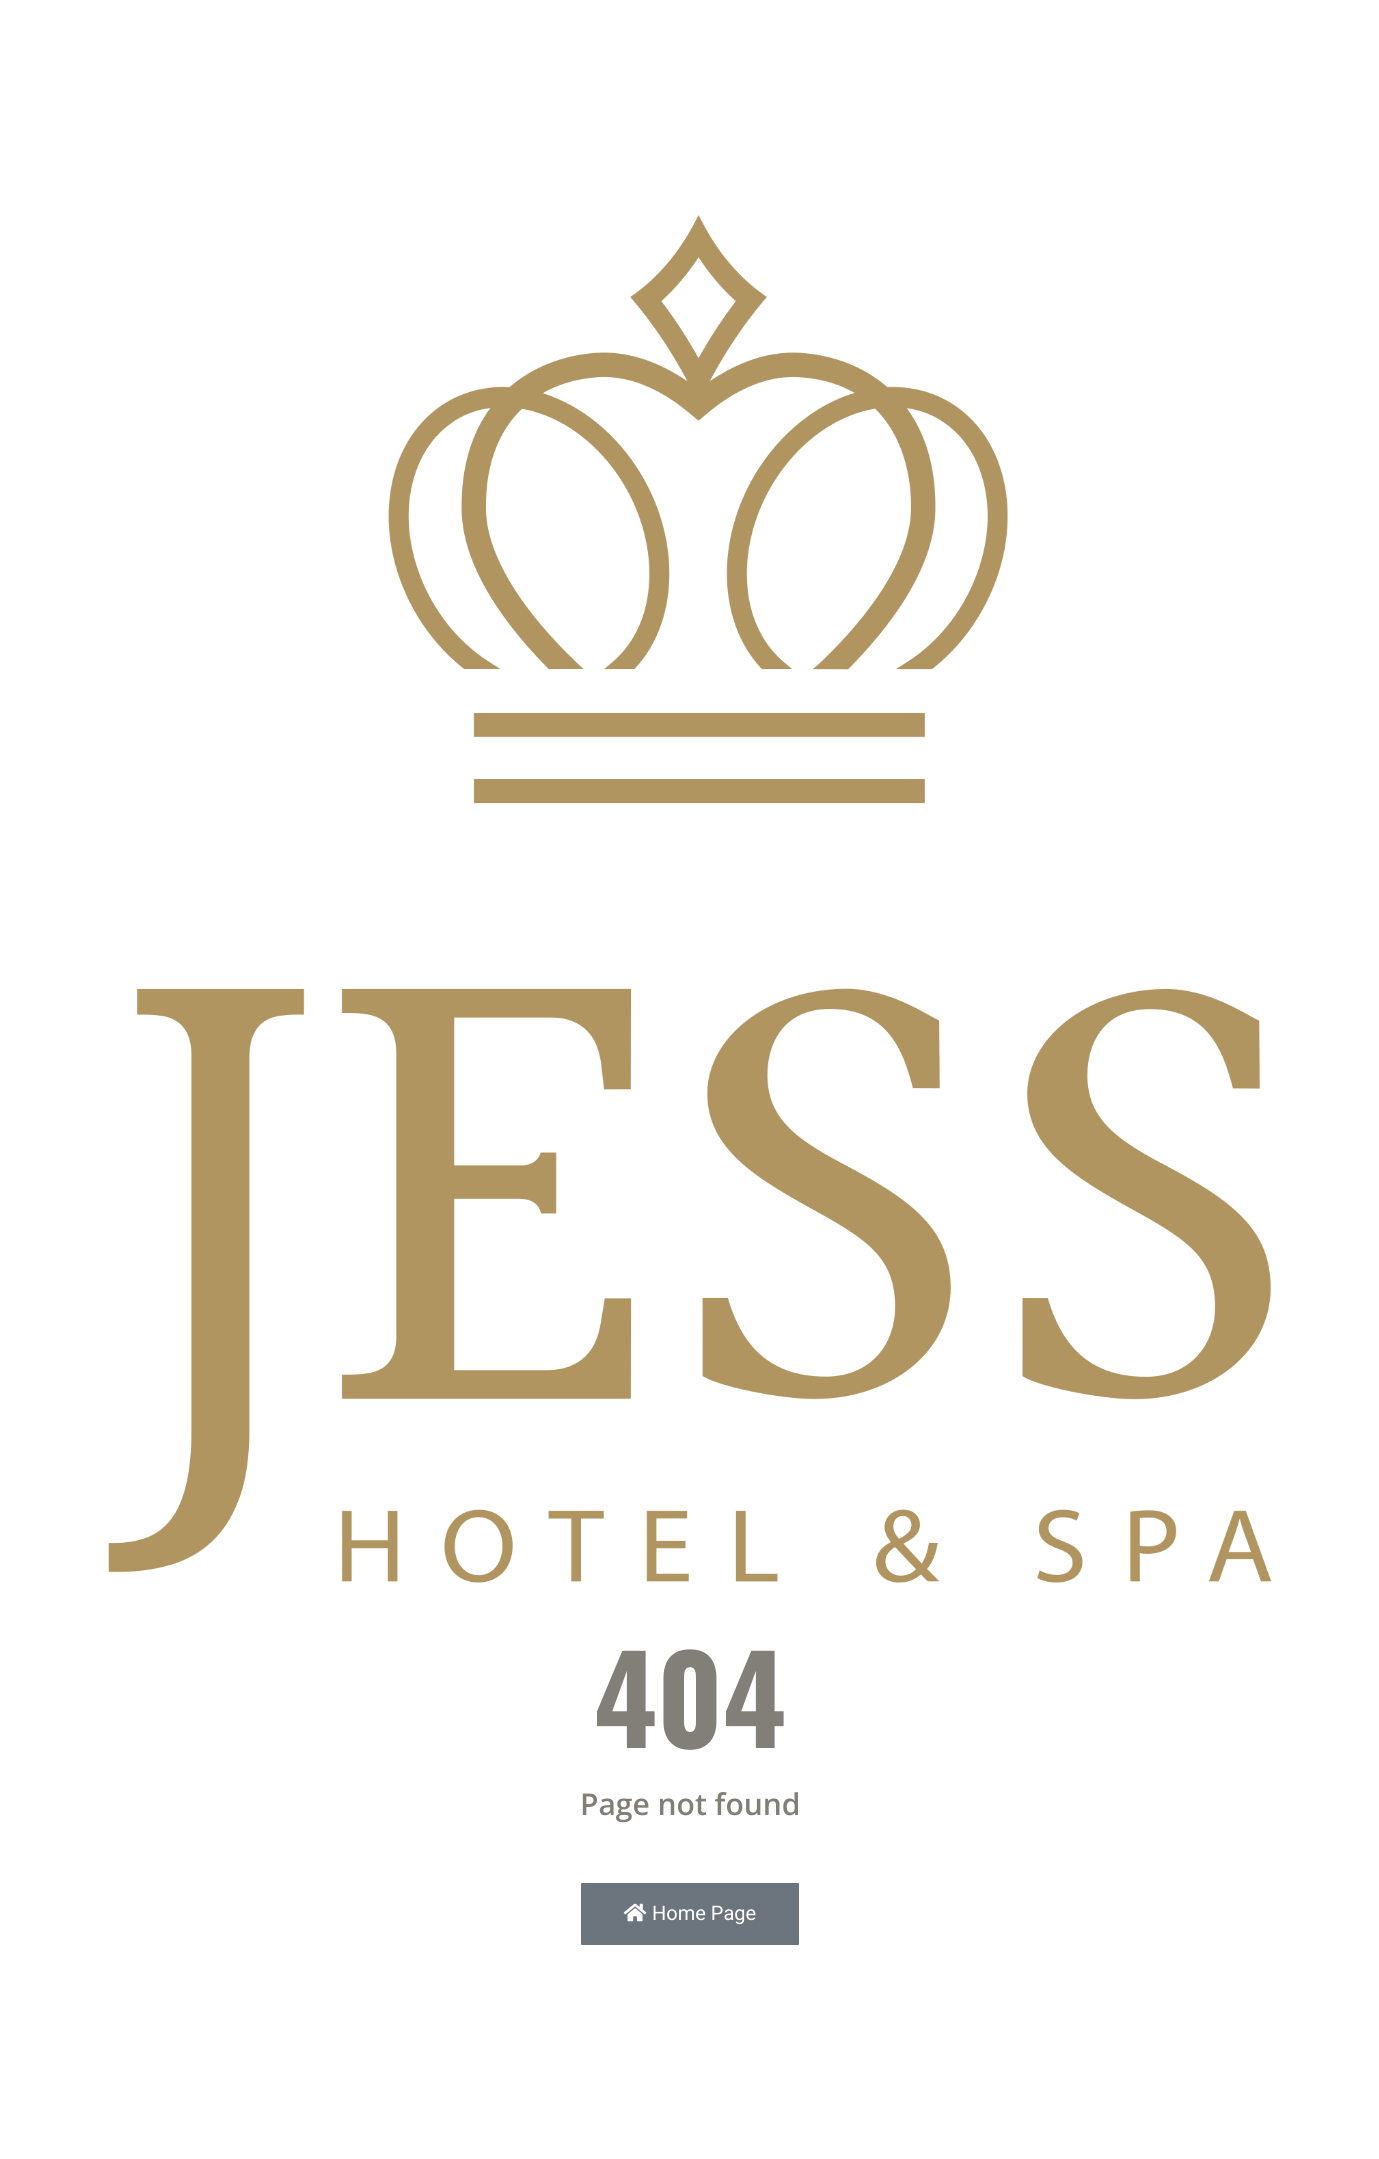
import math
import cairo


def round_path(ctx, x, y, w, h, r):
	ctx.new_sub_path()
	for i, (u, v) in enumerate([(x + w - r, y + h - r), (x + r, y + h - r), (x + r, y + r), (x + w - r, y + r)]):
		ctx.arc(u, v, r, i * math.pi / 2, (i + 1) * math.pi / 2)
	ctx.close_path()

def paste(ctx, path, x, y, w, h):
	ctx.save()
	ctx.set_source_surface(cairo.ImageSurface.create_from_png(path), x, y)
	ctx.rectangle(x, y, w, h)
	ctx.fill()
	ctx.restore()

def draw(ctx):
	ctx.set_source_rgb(1, 1, 1)
	ctx.paint()
	paste(ctx, 'media/1.png', 108, 215, 1164, 1368)
	ctx.select_font_face('Oswald', cairo.FONT_SLANT_NORMAL, cairo.FONT_WEIGHT_BOLD)
	ctx.set_font_size(120)
	ctx.set_source_rgb(0.51, 0.494, 0.471)
	ctx.move_to(594, 1748)
	ctx.show_text('404')
	ctx.select_font_face('Open Sans SemiBold')
	ctx.set_font_size(30)
	ctx.move_to(580, 1815)
	ctx.show_text('Page not found')
	ctx.set_source_rgb(0.424, 0.459, 0.49)
	round_path(ctx, 581.5, 1883.5, 217, 61, 0.5)
	ctx.fill_preserve()
	ctx.set_line_width(1)
	ctx.stroke()
	paste(ctx, 'media/2.png', 623, 1903, 24, 19)
	ctx.select_font_face('Roboto')
	ctx.set_font_size(20)
	ctx.set_source_rgb(1, 1, 1)
	ctx.move_to(652, 1920)
	ctx.show_text('Home Page')


surface = cairo.ImageSurface(cairo.FORMAT_RGB24, 1379, 2159)
ctx = cairo.Context(surface)
options = cairo.FontOptions()
options.set_hint_metrics(cairo.HINT_METRICS_OFF)
options.set_hint_style(cairo.HINT_STYLE_NONE)
ctx.set_font_options(options)
ctx.set_miter_limit(4)
draw(ctx)
surface.write_to_png('image.png')
